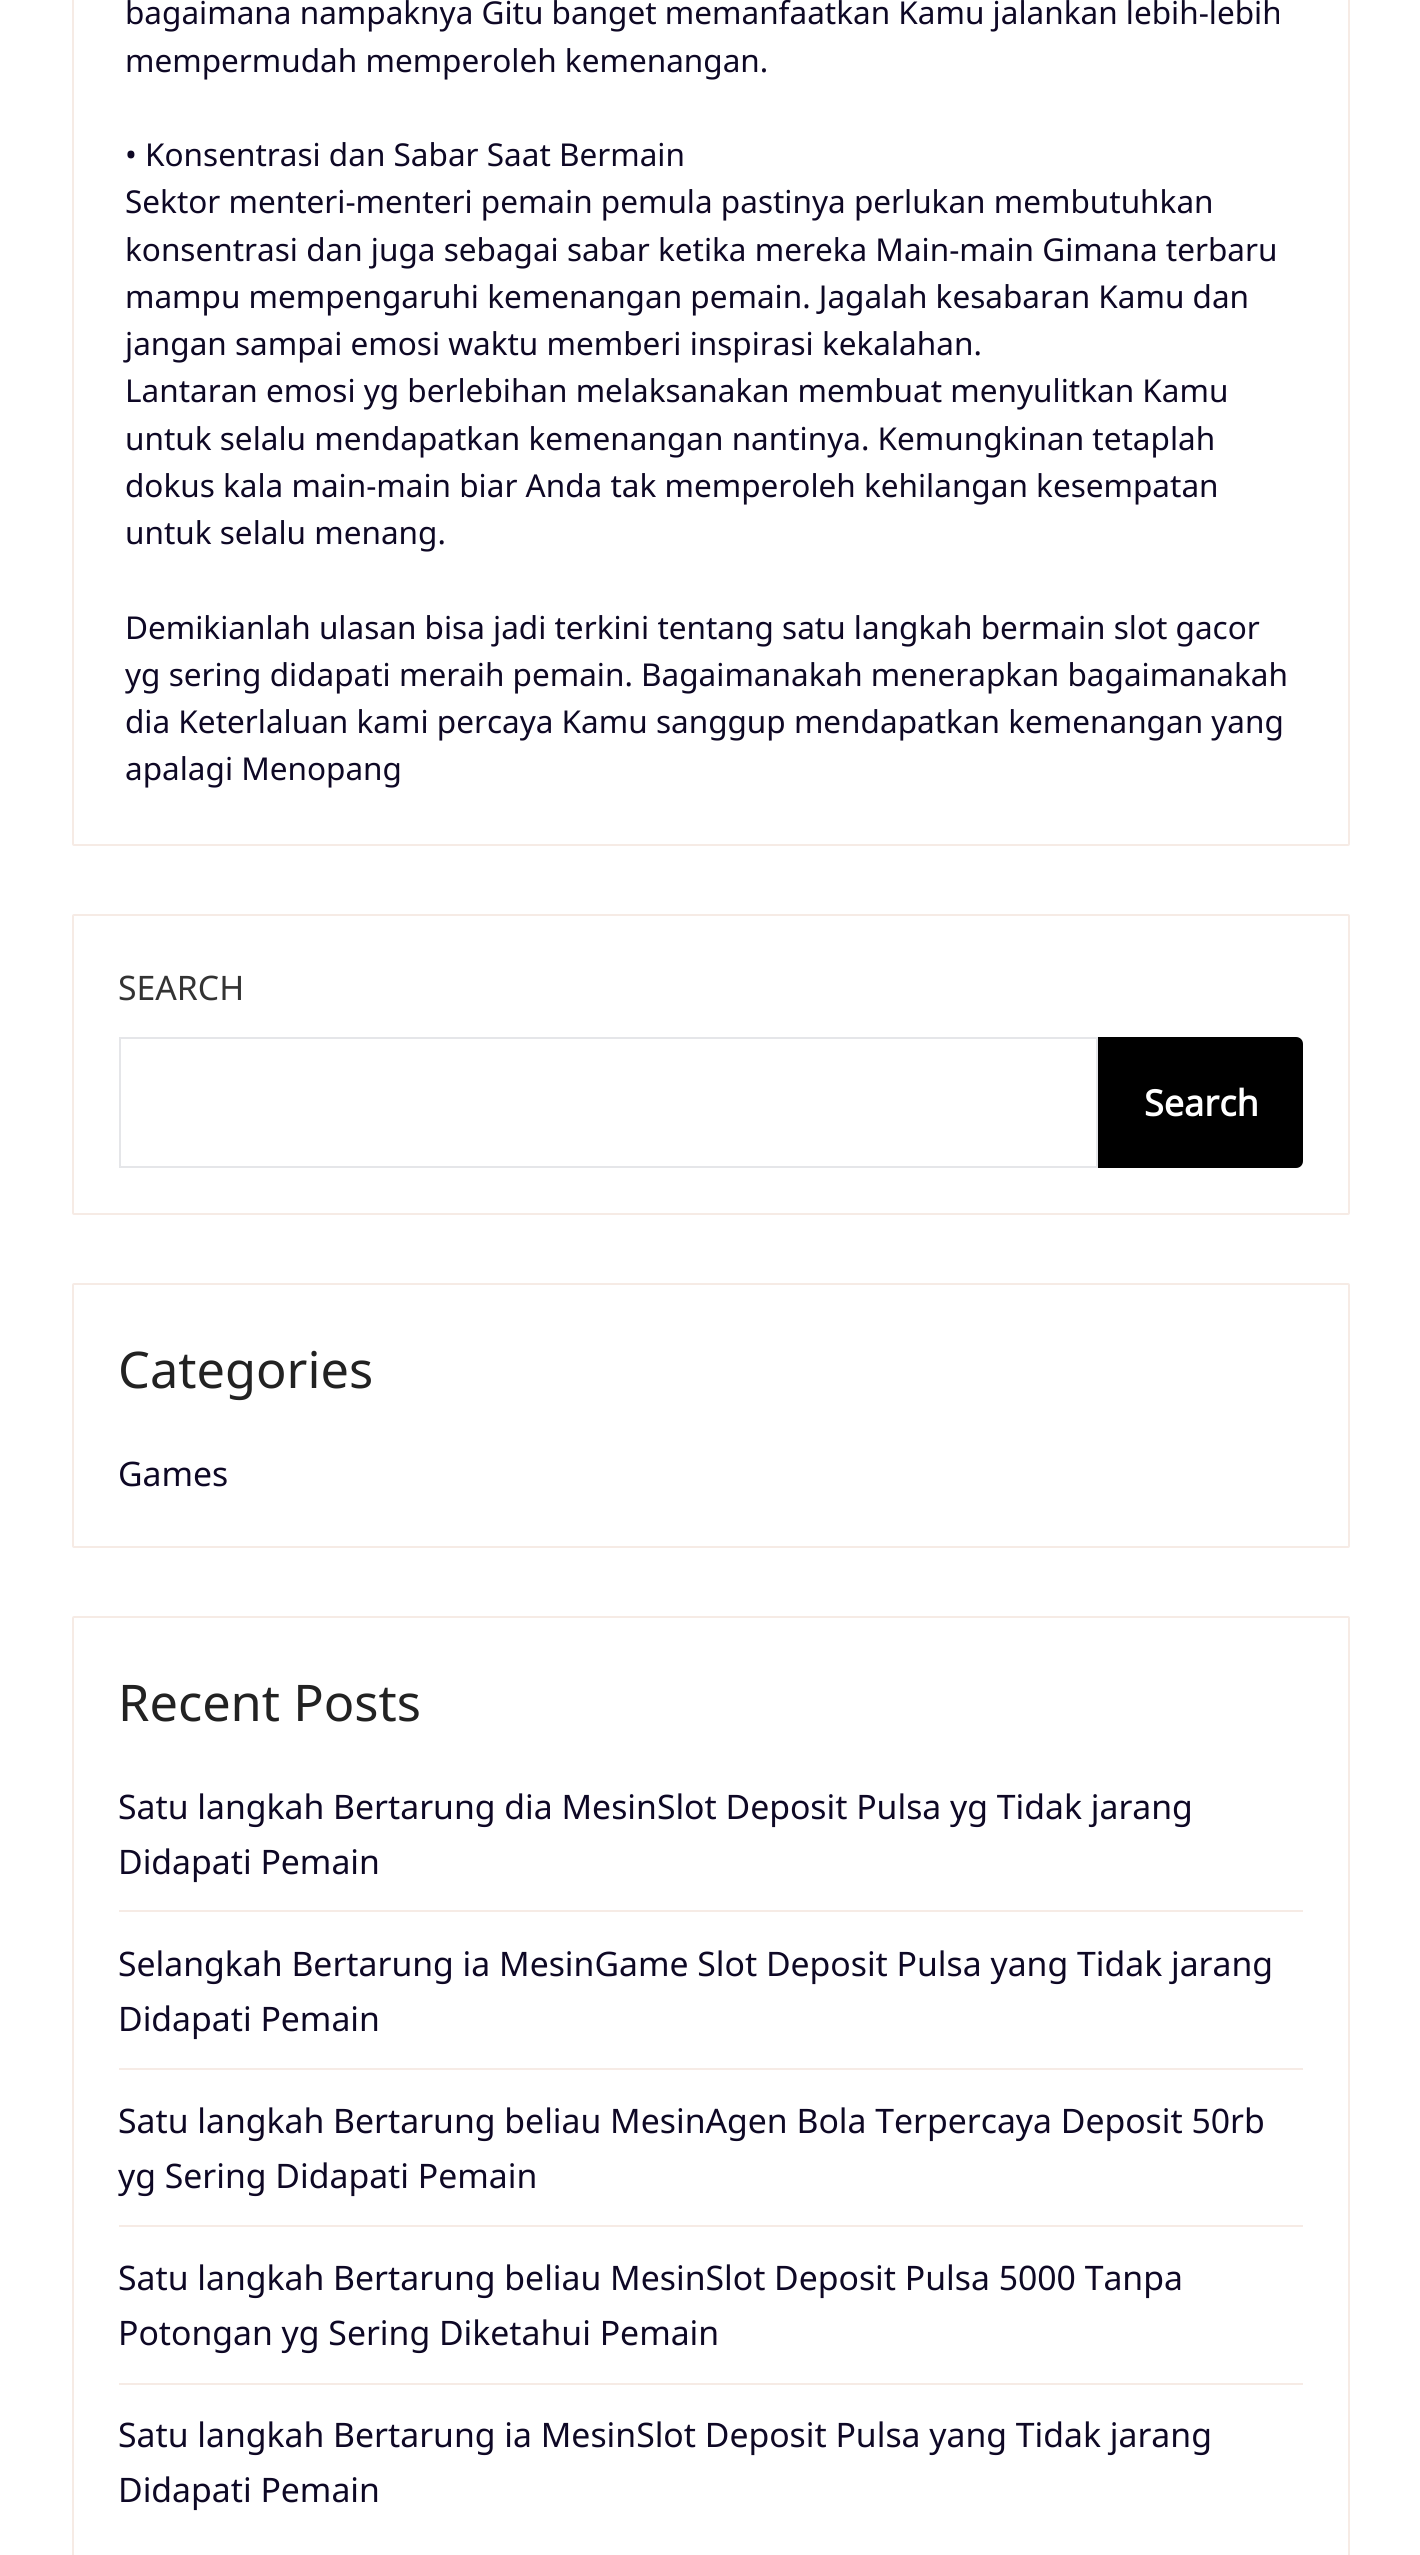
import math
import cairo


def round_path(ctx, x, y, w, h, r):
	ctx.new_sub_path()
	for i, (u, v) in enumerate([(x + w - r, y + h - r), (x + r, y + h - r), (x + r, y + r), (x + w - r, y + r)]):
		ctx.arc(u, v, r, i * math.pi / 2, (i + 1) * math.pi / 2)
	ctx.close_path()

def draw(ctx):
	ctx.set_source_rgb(1, 1, 1)
	ctx.paint()
	round_path(ctx, 73, -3, 1276, 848, 1)
	ctx.set_source_rgb(0.961, 0.918, 0.898)
	ctx.stroke()
	ctx.select_font_face('Noto Sans')
	ctx.set_font_size(31.5)
	ctx.set_source_rgb(0.055, 0.035, 0.145)
	for x, y, s in [
		(125, 24, 'bagaimana nampaknya Gitu banget memanfaatkan Kamu jalankan lebih-lebih'),
		(125, 72, 'mempermudah memperoleh kemenangan.'),
		(125, 166, '• Konsentrasi dan Sabar Saat Bermain'),
		(125, 213, 'Sektor menteri-menteri pemain pemula pastinya perlukan membutuhkan'),
		(125, 261, 'konsentrasi dan juga sebagai sabar ketika mereka Main-main Gimana terbaru'),
		(125, 308, 'mampu mempengaruhi kemenangan pemain. Jagalah kesabaran Kamu dan'),
		(125, 355, 'jangan sampai emosi waktu memberi inspirasi kekalahan.'),
		(125, 402, 'Lantaran emosi yg berlebihan melaksanakan membuat menyulitkan Kamu'),
		(125, 450, 'untuk selalu mendapatkan kemenangan nantinya. Kemungkinan tetaplah'),
		(125, 497, 'dokus kala main-main biar Anda tak memperoleh kehilangan kesempatan'),
		(125, 544, 'untuk selalu menang.'),
		(125, 639, 'Demikianlah ulasan bisa jadi terkini tentang satu langkah bermain slot gacor'),
		(125, 686, 'yg sering didapati meraih pemain. Bagaimanakah menerapkan bagaimanakah'),
		(125, 733, 'dia Keterlaluan kami percaya Kamu sanggup mendapatkan kemenangan yang'),
		(125, 780, 'apalagi Menopang'),
	]:
		ctx.move_to(x, y)
		ctx.show_text(s)
	round_path(ctx, 73, 915, 1276, 299, 1)
	ctx.set_source_rgb(0.961, 0.918, 0.898)
	ctx.stroke()
	ctx.set_font_size(33.75)
	ctx.set_source_rgb(0.2, 0.2, 0.2)
	ctx.move_to(118, 1000)
	ctx.show_text('SEARCH')
	ctx.rectangle(120, 1038, 977, 129)
	ctx.set_source_rgb(0.898, 0.902, 0.914)
	ctx.stroke()
	ctx.set_source_rgb(0, 0, 0)
	ctx.new_path()
	ctx.move_to(1098, 1037)
	ctx.line_to(1296, 1037)
	ctx.curve_to(1300, 1037, 1303, 1040, 1303, 1044)
	ctx.line_to(1303, 1161)
	ctx.curve_to(1303, 1165, 1300, 1168, 1296, 1168)
	ctx.line_to(1098, 1168)
	ctx.close_path()
	ctx.fill()
	ctx.select_font_face('Noto Sans', cairo.FONT_SLANT_NORMAL, cairo.FONT_WEIGHT_BOLD)
	ctx.set_font_size(36)
	ctx.set_source_rgb(1, 1, 1)
	ctx.move_to(1144, 1116)
	ctx.show_text('Search')
	round_path(ctx, 73, 1284, 1276, 263, 1)
	ctx.set_source_rgb(0.961, 0.918, 0.898)
	ctx.stroke()
	ctx.select_font_face('Noto Sans')
	ctx.set_font_size(50.5)
	ctx.set_source_rgb(0.133, 0.133, 0.133)
	ctx.move_to(118, 1388)
	ctx.show_text('Categories')
	ctx.set_font_size(33.75)
	ctx.set_source_rgb(0.055, 0.035, 0.145)
	ctx.move_to(118, 1486)
	ctx.show_text('Games')
	round_path(ctx, 73, 1617, 1276, 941, 1)
	ctx.set_source_rgb(0.961, 0.918, 0.898)
	ctx.stroke()
	ctx.set_font_size(50.5)
	ctx.set_source_rgb(0.133, 0.133, 0.133)
	ctx.move_to(118, 1721)
	ctx.show_text('Recent Posts')
	ctx.set_source_rgb(0.961, 0.918, 0.898)
	ctx.rectangle(119, 1910, 1184, 2)
	ctx.fill()
	ctx.set_font_size(33.75)
	ctx.set_source_rgb(0.055, 0.035, 0.145)
	ctx.move_to(118, 1819)
	ctx.show_text('Satu langkah Bertarung dia MesinSlot Deposit Pulsa yg Tidak jarang')
	ctx.move_to(118, 1874)
	ctx.show_text('Didapati Pemain')
	ctx.set_source_rgb(0.961, 0.918, 0.898)
	ctx.rectangle(119, 2068, 1184, 2)
	ctx.fill()
	ctx.set_source_rgb(0.055, 0.035, 0.145)
	ctx.move_to(118, 1976)
	ctx.show_text('Selangkah Bertarung ia MesinGame Slot Deposit Pulsa yang Tidak jarang')
	ctx.move_to(118, 2031)
	ctx.show_text('Didapati Pemain')
	ctx.set_source_rgb(0.961, 0.918, 0.898)
	ctx.rectangle(119, 2225, 1184, 2)
	ctx.fill()
	ctx.set_source_rgb(0.055, 0.035, 0.145)
	ctx.move_to(118, 2133)
	ctx.show_text('Satu langkah Bertarung beliau MesinAgen Bola Terpercaya Deposit 50rb')
	ctx.move_to(118, 2188)
	ctx.show_text('yg Sering Didapati Pemain')
	ctx.set_source_rgb(0.961, 0.918, 0.898)
	ctx.rectangle(119, 2383, 1184, 2)
	ctx.fill()
	ctx.set_source_rgb(0.055, 0.035, 0.145)
	for x, y, s in [
		(118, 2290, 'Satu langkah Bertarung beliau MesinSlot Deposit Pulsa 5000 Tanpa'),
		(118, 2345, 'Potongan yg Sering Diketahui Pemain'),
		(118, 2447, 'Satu langkah Bertarung ia MesinSlot Deposit Pulsa yang Tidak jarang'),
		(118, 2502, 'Didapati Pemain'),
	]:
		ctx.move_to(x, y)
		ctx.show_text(s)


surface = cairo.ImageSurface(cairo.FORMAT_RGB24, 1420, 2555)
ctx = cairo.Context(surface)
options = cairo.FontOptions()
options.set_hint_metrics(cairo.HINT_METRICS_OFF)
options.set_hint_style(cairo.HINT_STYLE_NONE)
ctx.set_font_options(options)
ctx.set_miter_limit(4)
draw(ctx)
surface.write_to_png('image.png')
